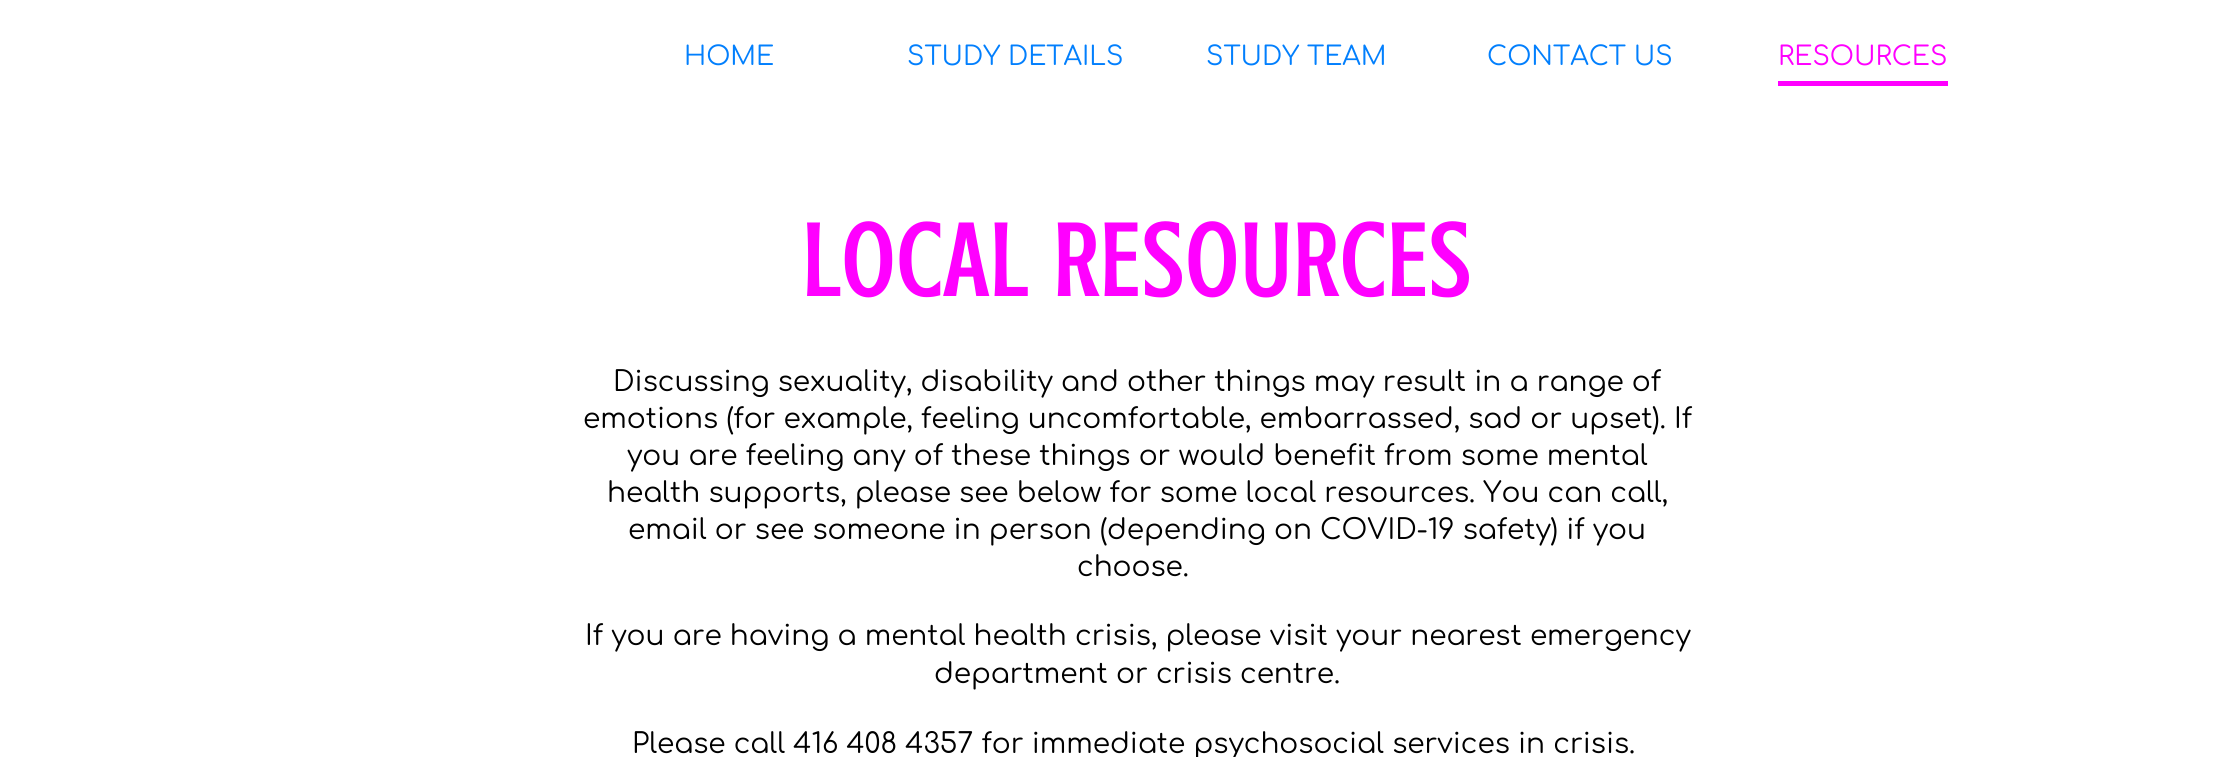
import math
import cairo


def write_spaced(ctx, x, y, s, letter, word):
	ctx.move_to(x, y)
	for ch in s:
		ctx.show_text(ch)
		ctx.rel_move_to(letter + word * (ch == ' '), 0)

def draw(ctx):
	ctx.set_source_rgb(1, 1, 1)
	ctx.paint()
	ctx.select_font_face('Comfortaa')
	ctx.set_font_size(26.25)
	ctx.set_source_rgb(0.008, 0.498, 0.992)
	for x, y, s in [
		(684, 65, 'HOME'),
		(907, 65, 'STUDY DETAILS'),
		(1206, 65, 'STUDY TEAM'),
		(1487, 65, 'CONTACT US'),
	]:
		ctx.move_to(x, y)
		ctx.show_text(s)
	ctx.set_source_rgb(1, 0, 1)
	ctx.move_to(1778, 65)
	ctx.show_text('RESOURCES')
	ctx.rectangle(1778, 81, 170, 5)
	ctx.fill()
	ctx.select_font_face('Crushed', cairo.FONT_SLANT_NORMAL, cairo.FONT_WEIGHT_BOLD)
	ctx.set_font_size(105)
	write_spaced(ctx, 802, 296, 'LOCAL RESOURCES', 3.5, 0)
	ctx.select_font_face('Comfortaa')
	ctx.set_font_size(28)
	ctx.set_source_rgb(0, 0, 0)
	for x, y, s in [
		(613, 391, 'Discussing sexuality, disability and other things may result in a range of'),
		(583, 428, 'emotions (for example, feeling uncomfortable, embarrassed, sad or upset). If'),
		(627, 465, 'you are feeling any of these things or would benefit from some mental'),
		(607, 502, 'health supports, please see below for some local resources. You can call,'),
		(628, 539, 'email or see someone in person (depending on COVID-19 safety) if you'),
		(1077, 576, 'choose.'),
		(585, 645, 'If you are having a mental health crisis, please visit your nearest emergency'),
		(934, 683, 'department or crisis centre.'),
		(632, 753, 'Please call 416 408 4357 for immediate psychosocial services in crisis.'),
	]:
		ctx.move_to(x, y)
		ctx.show_text(s)


surface = cairo.ImageSurface(cairo.FORMAT_RGB24, 2240, 757)
ctx = cairo.Context(surface)
options = cairo.FontOptions()
options.set_hint_metrics(cairo.HINT_METRICS_OFF)
options.set_hint_style(cairo.HINT_STYLE_NONE)
ctx.set_font_options(options)
ctx.set_miter_limit(4)
draw(ctx)
surface.write_to_png('image.png')
